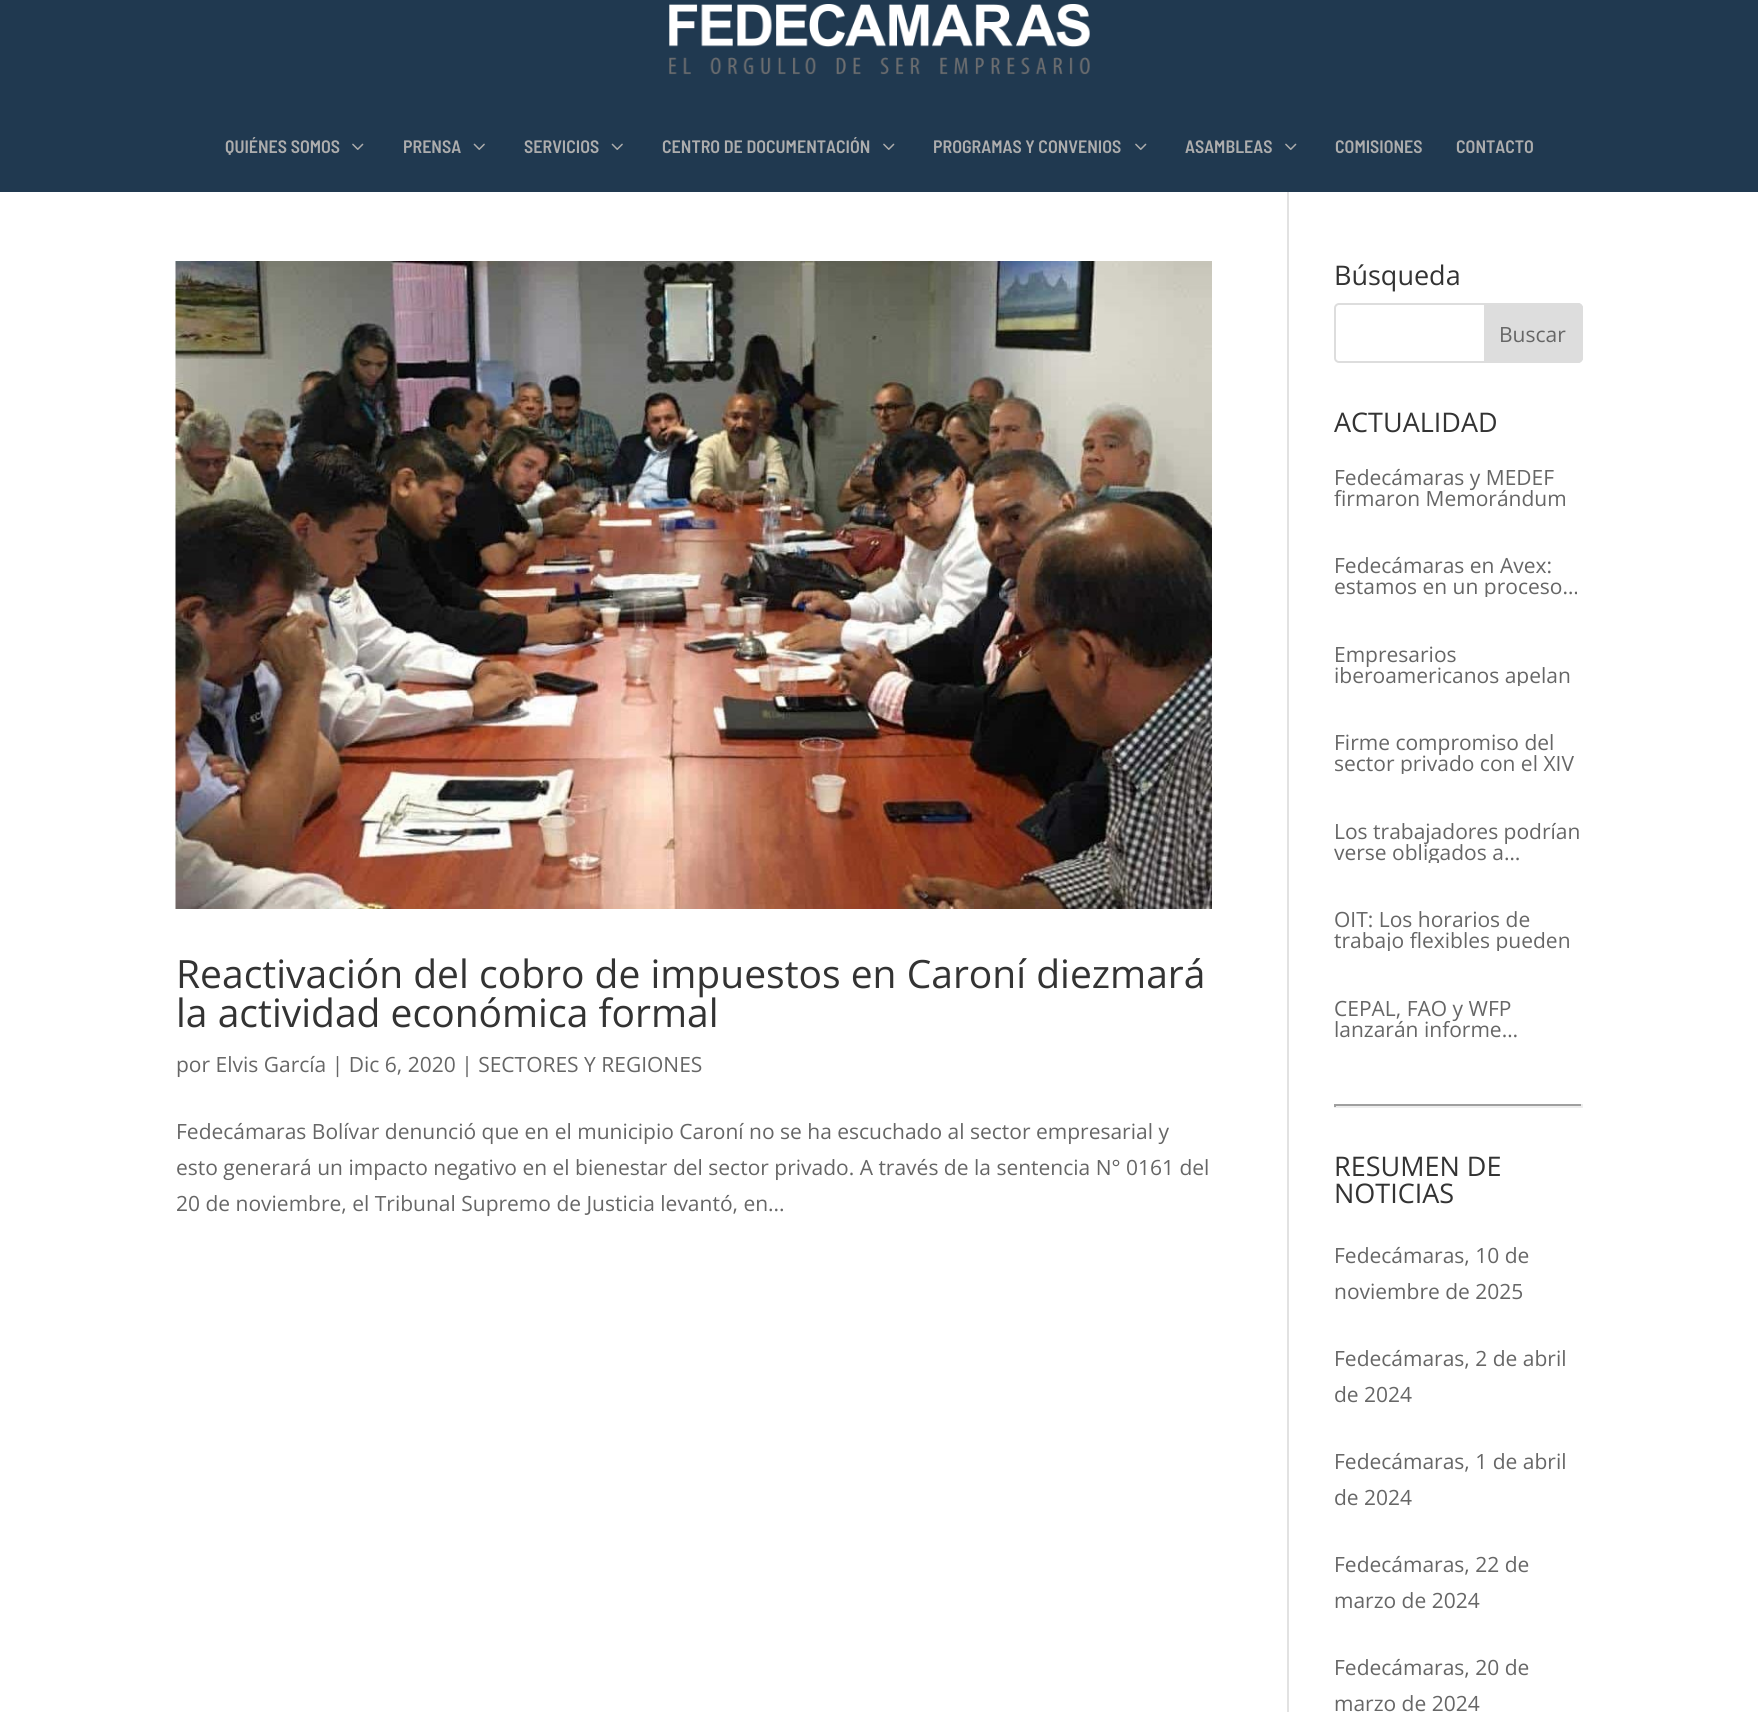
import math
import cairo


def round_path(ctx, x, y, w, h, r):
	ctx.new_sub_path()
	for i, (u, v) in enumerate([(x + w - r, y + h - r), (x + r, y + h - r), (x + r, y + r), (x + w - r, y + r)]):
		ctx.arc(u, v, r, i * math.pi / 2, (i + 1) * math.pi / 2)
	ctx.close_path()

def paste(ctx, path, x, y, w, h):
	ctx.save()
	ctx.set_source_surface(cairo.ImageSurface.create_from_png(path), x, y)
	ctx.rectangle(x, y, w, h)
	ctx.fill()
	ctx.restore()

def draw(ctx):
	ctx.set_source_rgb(1, 1, 1)
	ctx.paint()
	ctx.set_source_rgb(0.125, 0.224, 0.314)
	ctx.rectangle(0, 0, 1758, 192)
	ctx.fill()
	paste(ctx, 'media/1.png', 669, 4, 421, 71)
	ctx.select_font_face('Barlow Semi Condensed SemiBold')
	ctx.set_font_size(18)
	ctx.set_source_rgb(0.678, 0.678, 0.678)
	ctx.move_to(225, 153)
	ctx.show_text('QUIÉNES SOMOS')
	paste(ctx, 'media/2.png', 352, 143, 12, 7)
	ctx.move_to(403, 153)
	ctx.show_text('PRENSA')
	paste(ctx, 'media/3.png', 473, 143, 12, 7)
	ctx.move_to(524, 153)
	ctx.show_text('SERVICIOS')
	paste(ctx, 'media/3.png', 611, 143, 12, 7)
	ctx.move_to(662, 153)
	ctx.show_text('CENTRO DE DOCUMENTACIÓN')
	paste(ctx, 'media/2.png', 883, 143, 12, 7)
	ctx.move_to(933, 153)
	ctx.show_text('PROGRAMAS Y CONVENIOS')
	paste(ctx, 'media/2.png', 1135, 143, 12, 7)
	ctx.move_to(1185, 153)
	ctx.show_text('ASAMBLEAS')
	paste(ctx, 'media/2.png', 1285, 143, 12, 7)
	ctx.move_to(1335, 153)
	ctx.show_text('COMISIONES')
	ctx.move_to(1456, 153)
	ctx.show_text('CONTACTO')
	ctx.set_source_rgb(0.886, 0.886, 0.886)
	ctx.rectangle(1287, 192, 2, 1520)
	ctx.fill()
	paste(ctx, 'media/4.png', 175, 261, 1037, 648)
	ctx.select_font_face('Open Sans')
	ctx.set_font_size(39)
	ctx.set_source_rgb(0.2, 0.2, 0.2)
	ctx.move_to(176, 988)
	ctx.show_text('Reactivación del cobro de impuestos en Caroní diezmará')
	ctx.move_to(176, 1027)
	ctx.show_text('la actividad económica formal')
	ctx.set_font_size(21)
	ctx.set_source_rgb(0.4, 0.4, 0.4)
	for x, y, s in [
		(176, 1072, 'por Elvis García | Dic 6, 2020 | SECTORES Y REGIONES'),
		(176, 1139, 'Fedecámaras Bolívar denunció que en el municipio Caroní no se ha escuchado al sector empresarial y'),
		(176, 1175, 'esto generará un impacto negativo en el bienestar del sector privado. A través de la sentencia N° 0161 del'),
		(176, 1211, '20 de noviembre, el Tribunal Supremo de Justicia levantó, en...'),
	]:
		ctx.move_to(x, y)
		ctx.show_text(s)
	ctx.set_font_size(27)
	ctx.set_source_rgb(0.2, 0.2, 0.2)
	ctx.move_to(1334, 285)
	ctx.show_text('Búsqueda')
	round_path(ctx, 1335, 304, 247, 58, 4)
	ctx.set_source_rgb(0.867, 0.867, 0.867)
	ctx.stroke()
	ctx.new_path()
	ctx.move_to(1485, 304)
	ctx.line_to(1578, 304)
	ctx.curve_to(1580, 304, 1582, 306, 1582, 308)
	ctx.line_to(1582, 358)
	ctx.curve_to(1582, 360, 1580, 362, 1578, 362)
	ctx.line_to(1485, 362)
	ctx.close_path()
	ctx.fill_preserve()
	ctx.stroke()
	ctx.set_font_size(21)
	ctx.set_source_rgb(0.4, 0.4, 0.4)
	ctx.move_to(1499, 342)
	ctx.show_text('Buscar')
	ctx.set_font_size(27)
	ctx.set_source_rgb(0.2, 0.2, 0.2)
	ctx.move_to(1334, 432)
	ctx.show_text('ACTUALIDAD')
	ctx.set_font_size(21)
	ctx.set_source_rgb(0.4, 0.4, 0.4)
	for x, y, s in [
		(1334, 485, 'Fedecámaras y MEDEF'),
		(1334, 506, 'firmaron Memorándum'),
		(1334, 573, 'Fedecámaras en Avex:'),
	]:
		ctx.move_to(x, y)
		ctx.show_text(s)
	ctx.save()
	ctx.rectangle(1334, 555, 249, 42)
	ctx.clip()
	ctx.move_to(1334, 594)
	ctx.show_text('estamos en un proceso…')
	ctx.restore()
	ctx.move_to(1334, 662)
	ctx.show_text('Empresarios')
	ctx.save()
	ctx.rectangle(1334, 644, 249, 42)
	ctx.clip()
	ctx.move_to(1334, 683)
	ctx.show_text('iberoamericanos apelan')
	ctx.restore()
	ctx.move_to(1334, 750)
	ctx.show_text('Firme compromiso del')
	ctx.save()
	ctx.rectangle(1334, 732, 249, 42)
	ctx.clip()
	ctx.move_to(1334, 771)
	ctx.show_text('sector privado con el XIV')
	ctx.restore()
	ctx.move_to(1334, 839)
	ctx.show_text('Los trabajadores podrían')
	ctx.save()
	ctx.rectangle(1334, 821, 249, 42)
	ctx.clip()
	ctx.move_to(1334, 860)
	ctx.show_text('verse obligados a…')
	ctx.restore()
	ctx.move_to(1334, 927)
	ctx.show_text('OIT: Los horarios de')
	ctx.save()
	ctx.rectangle(1334, 909, 249, 42)
	ctx.clip()
	ctx.move_to(1334, 948)
	ctx.show_text('trabajo flexibles pueden')
	ctx.restore()
	ctx.move_to(1334, 1016)
	ctx.show_text('CEPAL, FAO y WFP')
	ctx.move_to(1334, 1037)
	ctx.show_text('lanzarán informe…')
	ctx.set_source_rgb(0.624, 0.624, 0.624)
	ctx.rectangle(1334, 1104, 249, 2)
	ctx.fill()
	ctx.set_source_rgb(0.933, 0.933, 0.933)
	ctx.rectangle(1581, 1104, 2, 3)
	ctx.rectangle(1334, 1106, 249, 2)
	ctx.fill()
	ctx.set_source_rgb(0.624, 0.624, 0.624)
	ctx.rectangle(1334, 1104, 2, 3)
	ctx.fill()
	ctx.set_font_size(27)
	ctx.set_source_rgb(0.2, 0.2, 0.2)
	ctx.move_to(1334, 1176)
	ctx.show_text('RESUMEN DE')
	ctx.move_to(1334, 1203)
	ctx.show_text('NOTICIAS')
	ctx.set_font_size(21)
	ctx.set_source_rgb(0.4, 0.4, 0.4)
	for x, y, s in [
		(1334, 1263, 'Fedecámaras, 10 de'),
		(1334, 1299, 'noviembre de 2025'),
		(1334, 1366, 'Fedecámaras, 2 de abril'),
		(1334, 1402, 'de 2024'),
		(1334, 1469, 'Fedecámaras, 1 de abril'),
		(1334, 1505, 'de 2024'),
		(1334, 1572, 'Fedecámaras, 22 de'),
		(1334, 1608, 'marzo de 2024'),
		(1334, 1675, 'Fedecámaras, 20 de'),
		(1334, 1711, 'marzo de 2024'),
	]:
		ctx.move_to(x, y)
		ctx.show_text(s)


surface = cairo.ImageSurface(cairo.FORMAT_RGB24, 1758, 1712)
ctx = cairo.Context(surface)
options = cairo.FontOptions()
options.set_hint_metrics(cairo.HINT_METRICS_OFF)
options.set_hint_style(cairo.HINT_STYLE_NONE)
ctx.set_font_options(options)
ctx.set_miter_limit(4)
draw(ctx)
surface.write_to_png('image.png')
